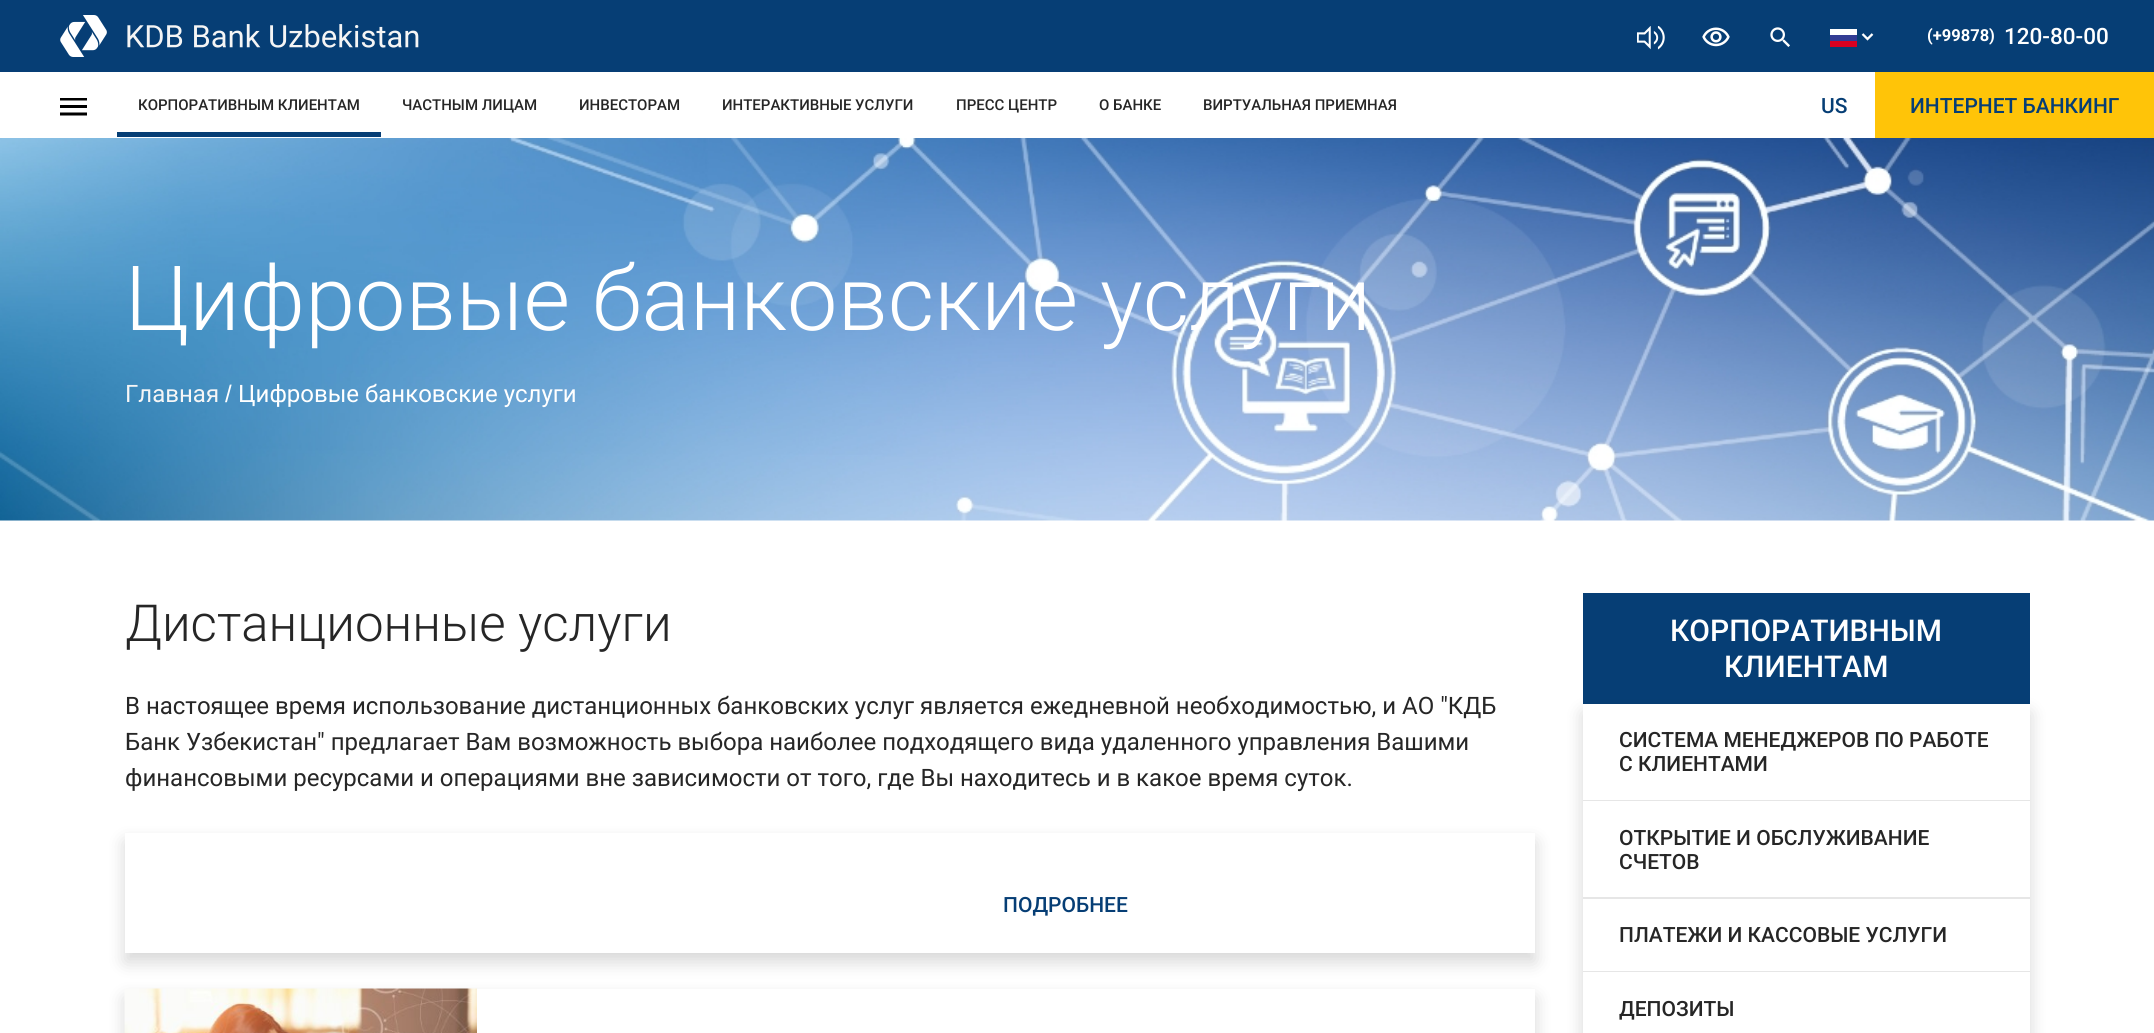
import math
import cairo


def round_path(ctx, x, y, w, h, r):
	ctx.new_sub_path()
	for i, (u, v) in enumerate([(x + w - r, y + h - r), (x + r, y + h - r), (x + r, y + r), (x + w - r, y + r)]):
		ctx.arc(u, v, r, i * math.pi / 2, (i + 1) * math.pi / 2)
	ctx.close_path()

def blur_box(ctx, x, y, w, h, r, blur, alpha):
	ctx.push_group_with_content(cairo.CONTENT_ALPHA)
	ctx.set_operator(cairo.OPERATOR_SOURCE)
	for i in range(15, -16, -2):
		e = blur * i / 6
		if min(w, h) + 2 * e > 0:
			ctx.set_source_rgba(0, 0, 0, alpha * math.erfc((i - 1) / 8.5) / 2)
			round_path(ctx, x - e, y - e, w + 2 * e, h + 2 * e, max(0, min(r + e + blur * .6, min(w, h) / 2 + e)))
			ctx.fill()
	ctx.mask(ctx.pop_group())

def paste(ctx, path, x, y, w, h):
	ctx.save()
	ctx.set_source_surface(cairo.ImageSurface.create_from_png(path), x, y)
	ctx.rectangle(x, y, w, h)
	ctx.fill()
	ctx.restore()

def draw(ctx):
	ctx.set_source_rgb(1, 1, 1)
	ctx.paint()
	ctx.set_source_rgb(0.027, 0.243, 0.459)
	ctx.rectangle(0, 0, 2154, 72)
	ctx.fill()
	paste(ctx, 'media/1.png', 60, 15, 359, 42)
	paste(ctx, 'media/2.png', 1637, 26, 28, 24)
	paste(ctx, 'media/3.png', 1702, 27, 28, 20)
	paste(ctx, 'media/4.png', 1770, 27, 20, 20)
	ctx.set_source_rgb(1, 1, 1)
	ctx.rectangle(1830, 29, 27, 6)
	ctx.fill()
	ctx.set_source_rgb(0.196, 0.235, 0.58)
	ctx.rectangle(1830, 35, 27, 6)
	ctx.fill()
	ctx.new_path()
	ctx.move_to(1862.5, 34)
	ctx.line_to(1867.5, 39)
	ctx.line_to(1872.5, 34)
	ctx.set_source_rgb(1, 1, 1)
	ctx.set_line_width(2.3)
	ctx.stroke()
	ctx.set_source_rgb(0.851, 0, 0.125)
	ctx.rectangle(1830, 41, 27, 6)
	ctx.fill()
	ctx.select_font_face('Roboto', cairo.FONT_SLANT_NORMAL, cairo.FONT_WEIGHT_BOLD)
	ctx.set_font_size(16.5)
	ctx.set_source_rgb(1, 1, 1)
	ctx.move_to(1927, 41)
	ctx.show_text('(+99878)')
	ctx.select_font_face('Roboto Medium')
	ctx.set_font_size(22.5)
	ctx.move_to(2004, 44)
	ctx.show_text('120-80-00')
	paste(ctx, 'media/5.png', 60, 98, 27, 18)
	ctx.set_font_size(15)
	ctx.set_source_rgb(0.149, 0.149, 0.149)
	ctx.move_to(138, 110)
	ctx.show_text('КОРПОРАТИВНЫМ КЛИЕНТАМ')
	ctx.set_source_rgb(0.027, 0.243, 0.459)
	ctx.rectangle(117, 132, 264, 5)
	ctx.fill()
	ctx.set_source_rgb(0.149, 0.149, 0.149)
	for x, y, s in [
		(402, 110, 'ЧАСТНЫМ ЛИЦАМ'),
		(579, 110, 'ИНВЕСТОРАМ'),
		(722, 110, 'ИНТЕРАКТИВНЫЕ УСЛУГИ'),
		(956, 110, 'ПРЕСС ЦЕНТР'),
		(1099, 110, 'О БАНКЕ'),
		(1203, 110, 'ВИРТУАЛЬНАЯ ПРИЕМНАЯ'),
	]:
		ctx.move_to(x, y)
		ctx.show_text(s)
	ctx.set_font_size(21)
	ctx.set_source_rgb(0.027, 0.243, 0.459)
	ctx.move_to(1821, 113)
	ctx.show_text('US')
	ctx.set_source_rgb(1, 0.769, 0.035)
	ctx.rectangle(1875, 72, 279, 66)
	ctx.fill()
	ctx.set_source_rgb(0.027, 0.243, 0.459)
	ctx.move_to(1910, 113)
	ctx.show_text('ИНТЕРНЕТ БАНКИНГ')
	paste(ctx, 'media/6.png', 0, 138, 2154, 383)
	ctx.select_font_face('Roboto Light')
	ctx.set_font_size(90)
	ctx.set_source_rgb(1, 1, 1)
	ctx.move_to(125, 330)
	ctx.show_text('Цифровые банковские услуги')
	ctx.select_font_face('Roboto')
	ctx.set_font_size(24)
	ctx.set_source_rgb(0.961, 0.961, 0.961)
	ctx.move_to(125, 402)
	ctx.show_text('Главная')
	ctx.select_font_face('Liberation Sans')
	ctx.set_source_rgb(1, 1, 1)
	ctx.move_to(225, 402)
	ctx.show_text('/')
	ctx.select_font_face('Roboto')
	ctx.move_to(238, 402)
	ctx.show_text('Цифровые банковские услуги')
	ctx.select_font_face('Roboto Light')
	ctx.set_font_size(51)
	ctx.set_source_rgb(0.149, 0.149, 0.149)
	ctx.move_to(125, 641)
	ctx.show_text('Дистанционные услуги')
	ctx.select_font_face('Roboto')
	ctx.set_font_size(24)
	for x, y, s in [
		(125, 714, 'В настоящее время использование дистанционных банковских услуг является ежедневной необходимостью, и АО "КДБ'),
		(125, 750, 'Банк Узбекистан" предлагает Вам возможность выбора наиболее подходящего вида удаленного управления Вашими'),
		(125, 786, 'финансовыми ресурсами и операциями вне зависимости от того, где Вы находитесь и в какое время суток.'),
	]:
		ctx.move_to(x, y)
		ctx.show_text(s)
	ctx.save()
	ctx.set_fill_rule(cairo.FILL_RULE_EVEN_ODD)
	ctx.new_path()
	ctx.move_to(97, 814)
	ctx.line_to(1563, 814)
	ctx.line_to(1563, 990)
	ctx.line_to(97, 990)
	ctx.close_path()
	ctx.move_to(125, 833)
	ctx.line_to(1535, 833)
	ctx.line_to(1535, 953)
	ctx.line_to(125, 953)
	ctx.close_path()
	ctx.clip()
	ctx.set_source_rgb(0, 0, 0)
	blur_box(ctx, 125, 842, 1410, 120, 0, 9, 0.16)
	ctx.restore()
	ctx.select_font_face('Roboto Medium')
	ctx.set_font_size(21)
	ctx.set_source_rgb(0.027, 0.243, 0.459)
	ctx.move_to(1003, 912)
	ctx.show_text('ПОДРОБНЕЕ')
	ctx.save()
	ctx.set_fill_rule(cairo.FILL_RULE_EVEN_ODD)
	ctx.new_path()
	ctx.move_to(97, 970)
	ctx.line_to(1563, 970)
	ctx.line_to(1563, 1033)
	ctx.line_to(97, 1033)
	ctx.close_path()
	ctx.move_to(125, 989)
	ctx.line_to(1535, 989)
	ctx.line_to(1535, 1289)
	ctx.line_to(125, 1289)
	ctx.close_path()
	ctx.clip()
	ctx.set_source_rgb(0, 0, 0)
	blur_box(ctx, 125, 998, 1410, 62, 0, 9, 0.16)
	ctx.restore()
	paste(ctx, 'media/7.png', 124, 988, 353, 45)
	ctx.rectangle(1583, 593, 447, 111)
	ctx.fill()
	ctx.set_font_size(30)
	ctx.set_source_rgb(1, 1, 1)
	ctx.move_to(1670, 641)
	ctx.show_text('КОРПОРАТИВНЫМ')
	ctx.move_to(1724, 677)
	ctx.show_text('КЛИЕНТАМ')
	ctx.set_source_rgb(0, 0, 0)
	blur_box(ctx, 1583, 713, 447, 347, 0, 9, 0.16)
	ctx.set_source_rgb(1, 1, 1)
	ctx.rectangle(1583, 704, 447, 267)
	ctx.fill()
	ctx.set_source_rgb(0.902, 0.902, 0.902)
	ctx.rectangle(1583, 800, 447, 1)
	ctx.fill()
	ctx.set_font_size(21)
	ctx.set_source_rgb(0.149, 0.149, 0.149)
	ctx.move_to(1619, 747)
	ctx.show_text('СИСТЕМА МЕНЕДЖЕРОВ ПО РАБОТЕ')
	ctx.move_to(1619, 771)
	ctx.show_text('С КЛИЕНТАМИ')
	ctx.set_source_rgb(0.902, 0.902, 0.902)
	ctx.rectangle(1583, 897, 447, 2)
	ctx.fill()
	ctx.set_source_rgb(0.149, 0.149, 0.149)
	ctx.move_to(1619, 845)
	ctx.show_text('ОТКРЫТИЕ И ОБСЛУЖИВАНИЕ')
	ctx.move_to(1619, 869)
	ctx.show_text('СЧЕТОВ')
	ctx.set_source_rgb(0.902, 0.902, 0.902)
	ctx.rectangle(1583, 971, 447, 1)
	ctx.fill()
	ctx.set_source_rgb(0.149, 0.149, 0.149)
	ctx.move_to(1619, 942)
	ctx.show_text('ПЛАТЕЖИ И КАССОВЫЕ УСЛУГИ')
	ctx.set_source_rgb(1, 1, 1)
	ctx.rectangle(1583, 972, 447, 61)
	ctx.fill()
	ctx.set_source_rgb(0.149, 0.149, 0.149)
	ctx.move_to(1619, 1016)
	ctx.show_text('ДЕПОЗИТЫ')


surface = cairo.ImageSurface(cairo.FORMAT_RGB24, 2154, 1033)
ctx = cairo.Context(surface)
options = cairo.FontOptions()
options.set_hint_metrics(cairo.HINT_METRICS_OFF)
options.set_hint_style(cairo.HINT_STYLE_NONE)
ctx.set_font_options(options)
ctx.set_miter_limit(4)
draw(ctx)
surface.write_to_png('image.png')
